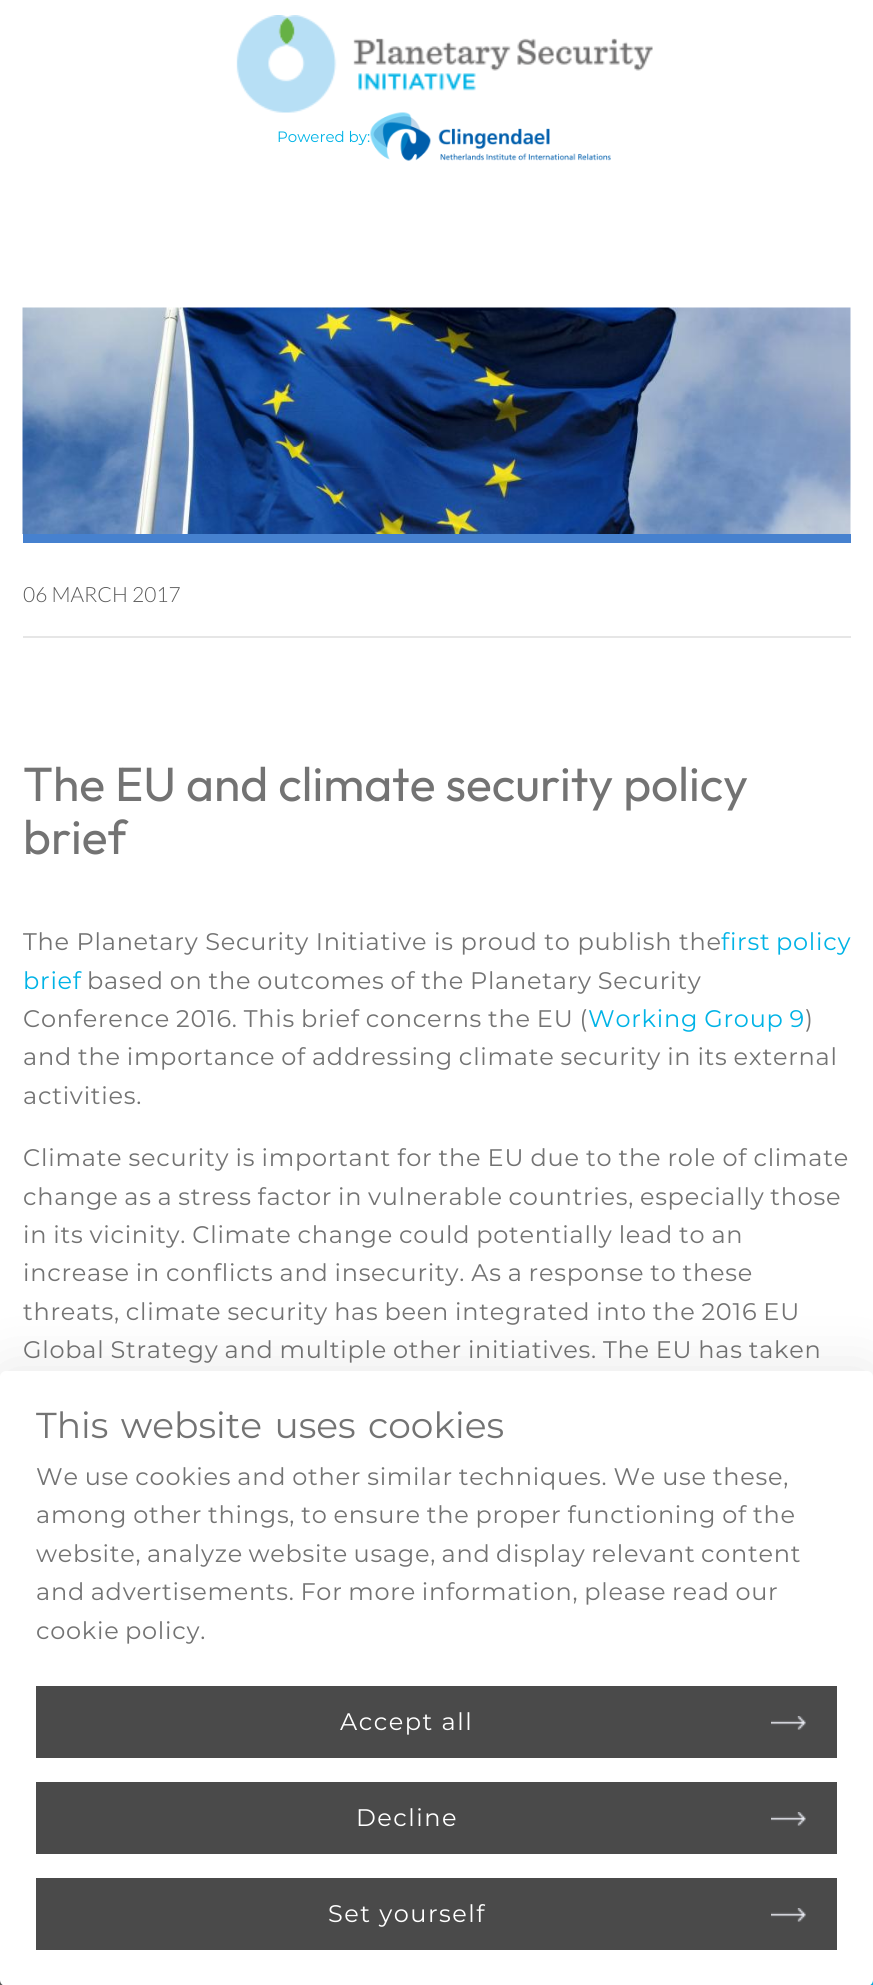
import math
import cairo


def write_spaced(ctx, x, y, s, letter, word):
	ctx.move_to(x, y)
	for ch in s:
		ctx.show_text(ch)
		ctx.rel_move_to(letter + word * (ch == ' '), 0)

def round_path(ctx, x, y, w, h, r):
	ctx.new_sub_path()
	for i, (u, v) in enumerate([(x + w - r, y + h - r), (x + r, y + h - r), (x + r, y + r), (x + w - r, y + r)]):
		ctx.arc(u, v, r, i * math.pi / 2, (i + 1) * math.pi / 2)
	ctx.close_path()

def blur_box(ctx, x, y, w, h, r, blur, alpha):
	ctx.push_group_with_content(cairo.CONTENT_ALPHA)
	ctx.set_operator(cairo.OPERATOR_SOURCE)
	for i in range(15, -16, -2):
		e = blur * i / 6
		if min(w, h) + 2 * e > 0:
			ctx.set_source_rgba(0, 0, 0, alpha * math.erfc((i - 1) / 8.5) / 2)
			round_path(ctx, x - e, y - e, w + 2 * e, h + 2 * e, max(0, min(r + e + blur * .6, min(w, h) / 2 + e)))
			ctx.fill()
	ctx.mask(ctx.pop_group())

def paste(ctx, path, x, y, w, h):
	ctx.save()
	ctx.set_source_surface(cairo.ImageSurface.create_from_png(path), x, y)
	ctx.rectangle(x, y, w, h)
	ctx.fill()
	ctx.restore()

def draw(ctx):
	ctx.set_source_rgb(1, 1, 1)
	ctx.paint()
	paste(ctx, 'media/1.png', 236, 15, 417, 98)
	ctx.select_font_face('Montserrat')
	ctx.set_font_size(15)
	ctx.set_source_rgb(0, 0.702, 0.902)
	ctx.move_to(277, 142)
	ctx.show_text('Powered by:')
	paste(ctx, 'media/2.png', 370, 112, 241, 49)
	ctx.set_source_rgb(0.353, 0.353, 0.353)
	ctx.rectangle(0, 1980, 3, 5)
	ctx.fill()
	ctx.set_source_rgb(0, 0.702, 0.902)
	ctx.rectangle(870, 1980, 3, 5)
	ctx.fill()
	ctx.set_source_rgb(0.275, 0.506, 0.812)
	ctx.rectangle(23, 534, 828, 9)
	ctx.fill()
	paste(ctx, 'media/3.png', 22, 307, 829, 227)
	ctx.set_source_rgb(0.902, 0.902, 0.902)
	ctx.rectangle(23, 636, 828, 2)
	ctx.fill()
	ctx.select_font_face('Lato Light')
	ctx.set_font_size(21)
	ctx.set_source_rgb(0.353, 0.353, 0.353)
	ctx.move_to(23, 602)
	ctx.show_text('06 MARCH 2017')
	ctx.select_font_face('Outfit')
	ctx.set_font_size(48)
	ctx.set_source_rgb(0.451, 0.451, 0.451)
	ctx.move_to(23, 801)
	ctx.show_text('The EU and climate security policy')
	ctx.move_to(23, 854)
	ctx.show_text('brief')
	ctx.select_font_face('Montserrat')
	ctx.set_font_size(24)
	write_spaced(ctx, 23, 950, 'The Planetary Security Initiative is proud to publish the', 0.75, -0.25)
	ctx.set_source_rgb(0, 0.702, 0.902)
	write_spaced(ctx, 721, 950, 'first policy', 0.75, -1.5)
	write_spaced(ctx, 23, 989, 'brief', 0.75, 0)
	ctx.set_source_rgb(0.451, 0.451, 0.451)
	write_spaced(ctx, 87, 989, 'based on the outcomes of the Planetary Security', 0.75, -1)
	write_spaced(ctx, 23, 1027, 'Conference 2016. This brief concerns the EU (', 0.75, -1)
	ctx.set_source_rgb(0, 0.702, 0.902)
	write_spaced(ctx, 588, 1027, 'Working Group 9', 0.75, -1)
	ctx.set_source_rgb(0.451, 0.451, 0.451)
	write_spaced(ctx, 805, 1027, ')', 0.75, 0)
	write_spaced(ctx, 23, 1065, 'and the importance of addressing climate security in its external', 0.75, -1)
	write_spaced(ctx, 23, 1104, 'activities.', 0.75, 0)
	write_spaced(ctx, 23, 1166, 'Climate security is important for the EU due to the role of climate', 0.75, -0.75)
	write_spaced(ctx, 23, 1205, 'change as a stress factor in vulnerable countries, especially those', 0.75, -1.25)
	for x, y, s in [
		(23, 1243, 'in its vicinity. Climate change could potentially lead to an'),
		(23, 1281, 'increase in conflicts and insecurity. As a response to these'),
		(23, 1320, 'threats, climate security has been integrated into the 2016 EU'),
		(23, 1358, 'Global Strategy and multiple other initiatives. The EU has taken'),
	]:
		write_spaced(ctx, x, y, s, 0.75, -1)
	ctx.set_source_rgb(0, 0, 0)
	blur_box(ctx, 0, 1371, 873, 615, 6, 30, 0.1)
	ctx.set_source_rgb(1, 1, 1)
	round_path(ctx, 0, 1371, 873, 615, 6)
	ctx.fill()
	ctx.set_font_size(36)
	ctx.set_source_rgb(0.451, 0.451, 0.451)
	write_spaced(ctx, 36, 1438, 'This website uses cookies', 0, 3)
	ctx.set_font_size(24)
	write_spaced(ctx, 36, 1485, 'We use cookies and other similar techniques. We use these,', 0.75, -1)
	write_spaced(ctx, 36, 1523, 'among other things, to ensure the proper functioning of the', 0.75, -1)
	write_spaced(ctx, 36, 1562, 'website, analyze website usage, and display relevant content', 0.75, -1.5)
	write_spaced(ctx, 36, 1600, 'and advertisements. For more information, please read our', 0.75, -1.25)
	write_spaced(ctx, 36, 1639, 'cookie policy.', 0.75, -1.5)
	ctx.set_source_rgb(0.29, 0.29, 0.29)
	ctx.rectangle(36, 1686, 801, 72)
	ctx.fill()
	paste(ctx, 'media/4.png', 771, 1716, 35, 14)
	ctx.set_source_rgb(1, 1, 1)
	write_spaced(ctx, 340, 1730, 'Accept all', 1.5, 0)
	ctx.set_source_rgb(0.29, 0.29, 0.29)
	ctx.rectangle(36, 1782, 801, 72)
	ctx.fill()
	paste(ctx, 'media/4.png', 771, 1812, 35, 14)
	ctx.set_source_rgb(1, 1, 1)
	write_spaced(ctx, 356, 1826, 'Decline', 1.5, 0)
	ctx.set_source_rgb(0.29, 0.29, 0.29)
	ctx.rectangle(36, 1878, 801, 72)
	ctx.fill()
	paste(ctx, 'media/4.png', 771, 1908, 35, 14)
	ctx.set_source_rgb(1, 1, 1)
	write_spaced(ctx, 328, 1922, 'Set yourself', 1.5, 0)


surface = cairo.ImageSurface(cairo.FORMAT_RGB24, 873, 1985)
ctx = cairo.Context(surface)
options = cairo.FontOptions()
options.set_hint_metrics(cairo.HINT_METRICS_OFF)
options.set_hint_style(cairo.HINT_STYLE_NONE)
ctx.set_font_options(options)
ctx.set_miter_limit(4)
draw(ctx)
surface.write_to_png('image.png')
